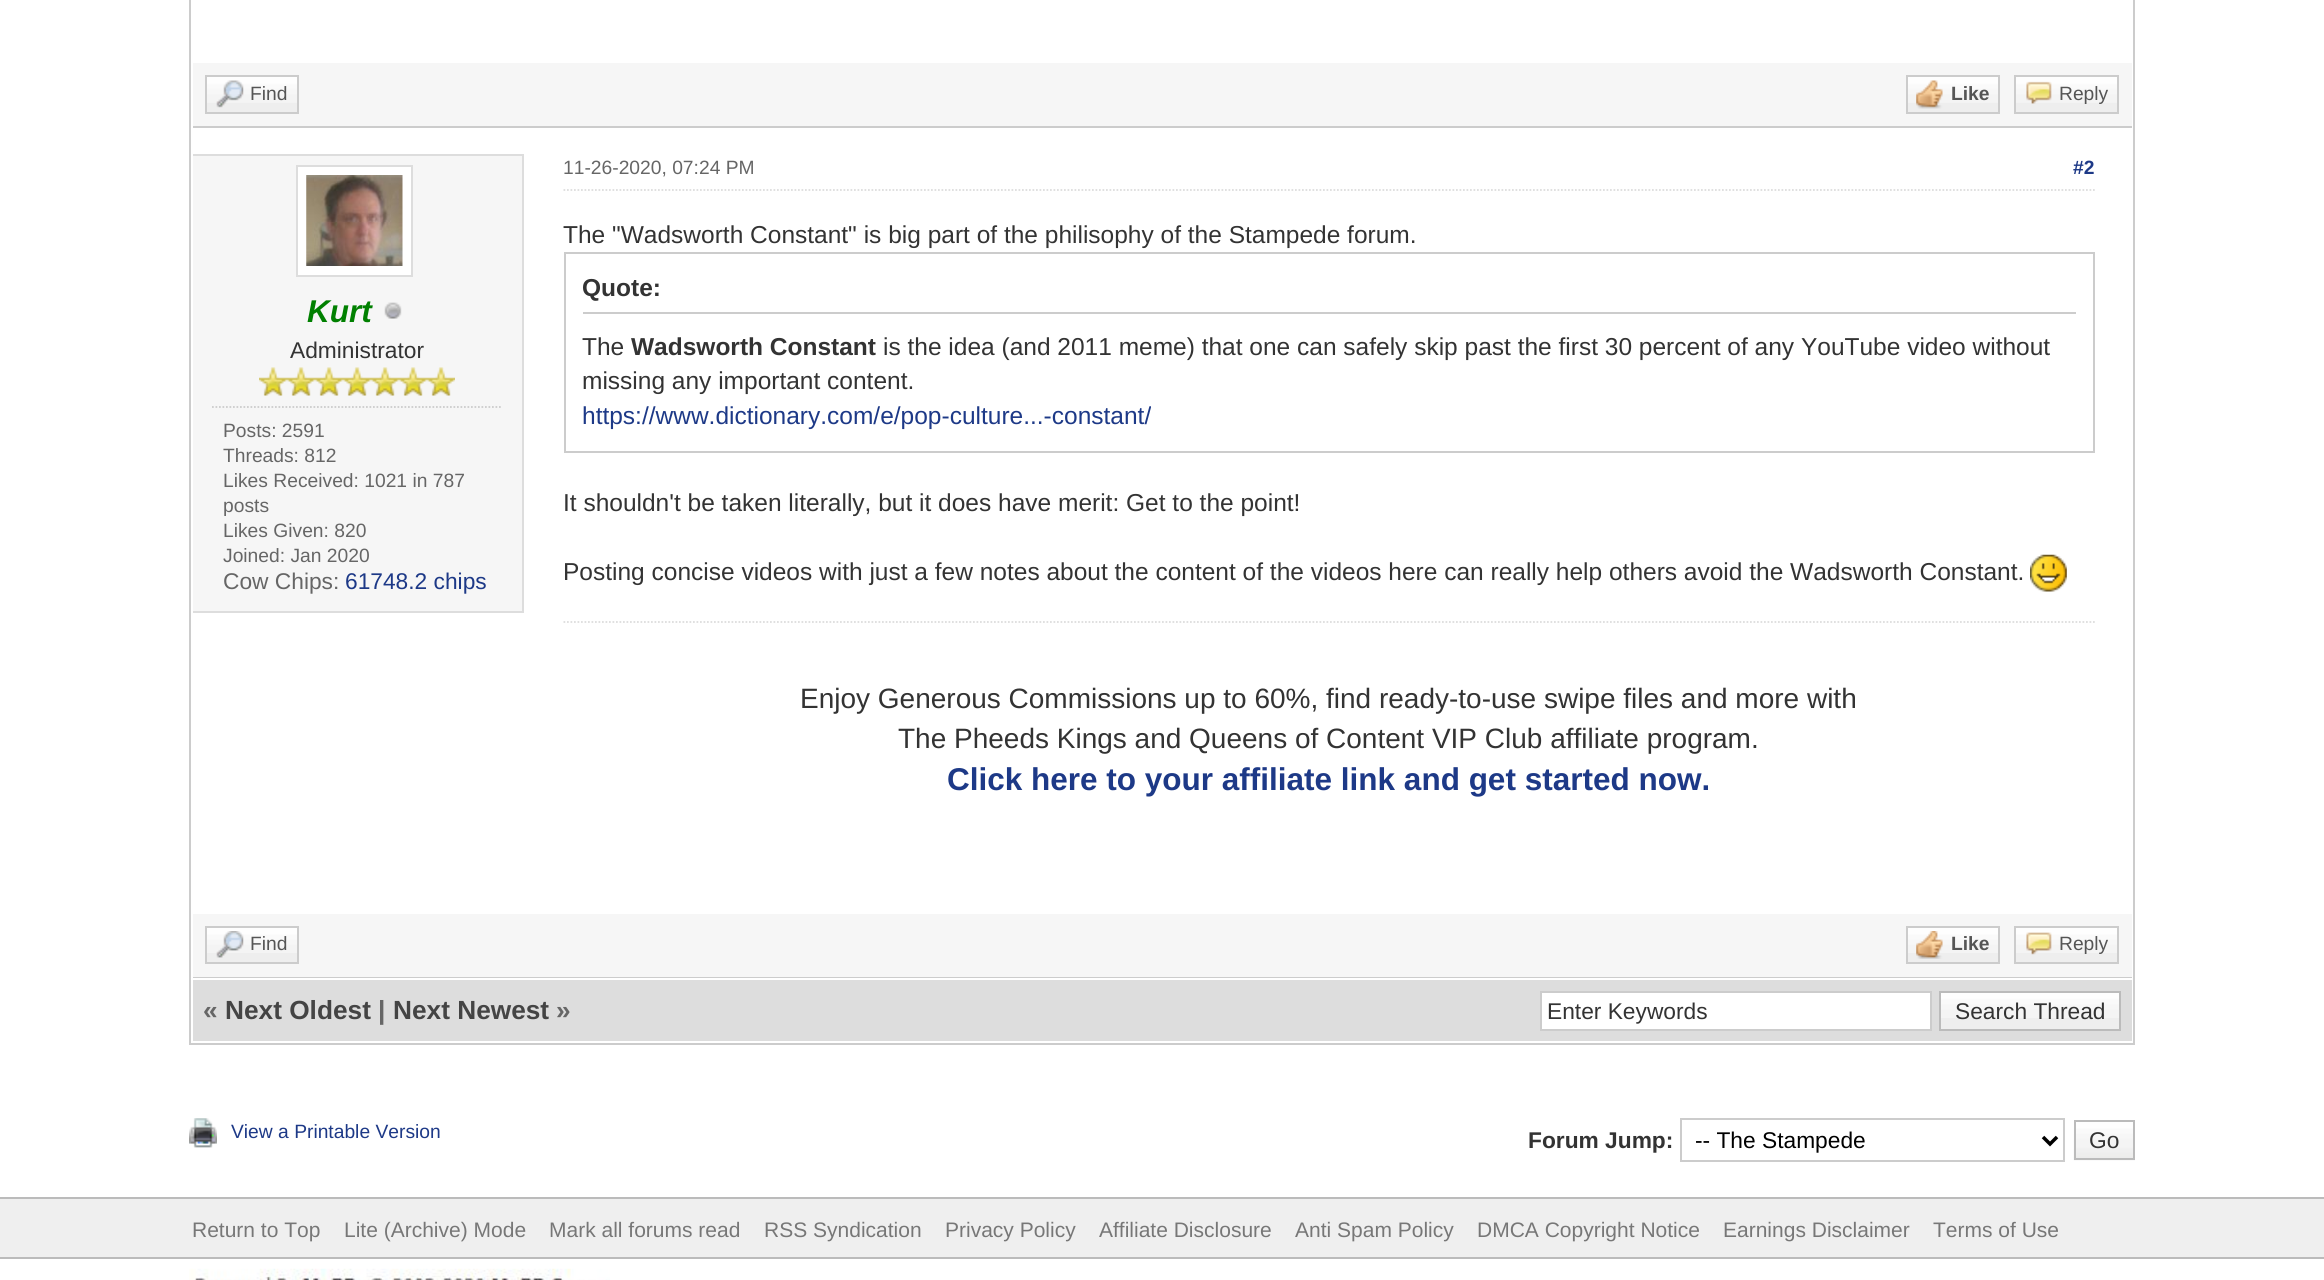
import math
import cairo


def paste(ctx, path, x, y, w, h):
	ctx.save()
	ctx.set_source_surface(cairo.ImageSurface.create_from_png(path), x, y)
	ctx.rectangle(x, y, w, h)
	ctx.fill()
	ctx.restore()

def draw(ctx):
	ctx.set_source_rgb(1, 1, 1)
	ctx.paint()
	ctx.rectangle(190, -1, 1944, 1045)
	ctx.set_source_rgb(0.8, 0.8, 0.8)
	ctx.stroke()
	ctx.set_source_rgb(0.961, 0.961, 0.961)
	ctx.rectangle(193, 63, 1939, 63)
	ctx.fill()
	ctx.set_source_rgb(0.8, 0.8, 0.8)
	ctx.rectangle(193, 126, 1939, 2)
	ctx.fill()
	ctx.set_source_rgb(0.933, 0.933, 0.933)
	ctx.rectangle(207, 103, 90, 9)
	ctx.fill()
	paste(ctx, 'media/1.png', 207, 77, 90, 26)
	ctx.rectangle(206, 76, 92, 37)
	ctx.set_source_rgb(0.8, 0.8, 0.8)
	ctx.stroke()
	paste(ctx, 'media/2.png', 216, 80, 28, 28)
	ctx.select_font_face('Liberation Sans')
	ctx.set_font_size(19.25)
	ctx.set_source_rgb(0.333, 0.333, 0.333)
	ctx.move_to(250, 100)
	ctx.show_text('Find')
	ctx.set_source_rgb(0.933, 0.933, 0.933)
	ctx.rectangle(1908, 103, 90, 9)
	ctx.fill()
	paste(ctx, 'media/1.png', 1908, 77, 90, 26)
	ctx.rectangle(1907, 76, 92, 37)
	ctx.set_source_rgb(0.8, 0.8, 0.8)
	ctx.stroke()
	paste(ctx, 'media/3.png', 1916, 80, 27, 29)
	ctx.select_font_face('Liberation Sans', cairo.FONT_SLANT_NORMAL, cairo.FONT_WEIGHT_BOLD)
	ctx.set_source_rgb(0.333, 0.333, 0.333)
	ctx.move_to(1951, 100)
	ctx.show_text('Like')
	ctx.set_source_rgb(0.933, 0.933, 0.933)
	ctx.rectangle(2016, 103, 101, 9)
	ctx.fill()
	paste(ctx, 'media/4.png', 2016, 77, 101, 26)
	ctx.rectangle(2015, 76, 103, 37)
	ctx.set_source_rgb(0.8, 0.8, 0.8)
	ctx.stroke()
	paste(ctx, 'media/5.png', 2026, 81, 26, 23)
	ctx.select_font_face('Liberation Sans')
	ctx.set_source_rgb(0.333, 0.333, 0.333)
	ctx.move_to(2059, 100)
	ctx.show_text('Reply')
	ctx.set_source_rgb(0.961, 0.961, 0.961)
	ctx.rectangle(193, 156, 329, 455)
	ctx.fill()
	ctx.set_source_rgb(0.867, 0.867, 0.867)
	ctx.rectangle(193, 154, 330, 2)
	ctx.rectangle(522, 154, 2, 459)
	ctx.rectangle(193, 611, 330, 2)
	ctx.fill()
	ctx.set_source_rgb(1, 1, 1)
	ctx.rectangle(297, 166, 115, 110)
	ctx.fill_preserve()
	ctx.set_source_rgb(0.867, 0.867, 0.867)
	ctx.stroke()
	paste(ctx, 'media/6.png', 306, 175, 97, 91)
	ctx.select_font_face('Liberation Sans', cairo.FONT_SLANT_ITALIC, cairo.FONT_WEIGHT_BOLD)
	ctx.set_font_size(31.5)
	ctx.set_source_rgb(0, 0.502, 0)
	ctx.move_to(307, 322)
	ctx.show_text('Kurt')
	paste(ctx, 'media/7.png', 384, 302, 18, 17)
	ctx.select_font_face('Liberation Sans')
	ctx.set_font_size(22.75)
	ctx.set_source_rgb(0.2, 0.2, 0.2)
	ctx.move_to(290, 358)
	ctx.show_text('Administrator')
	paste(ctx, 'media/8.png', 259, 367, 28, 29)
	paste(ctx, 'media/8.png', 287, 367, 28, 29)
	paste(ctx, 'media/8.png', 315, 367, 28, 29)
	paste(ctx, 'media/8.png', 343, 367, 28, 29)
	paste(ctx, 'media/9.png', 371, 367, 28, 29)
	paste(ctx, 'media/9.png', 399, 367, 28, 29)
	paste(ctx, 'media/9.png', 427, 367, 28, 29)
	ctx.new_path()
	ctx.move_to(212, 407)
	ctx.line_to(502, 407)
	ctx.set_source_rgb(0.8, 0.8, 0.8)
	ctx.set_line_width(1.8)
	ctx.set_dash([1.75, 1.75])
	ctx.stroke()
	ctx.set_font_size(19.25)
	ctx.set_source_rgb(0.4, 0.4, 0.4)
	for x, y, s in [
		(223, 437, 'Posts: 2591'),
		(223, 462, 'Threads: 812'),
		(223, 487, 'Likes Received: 1021 in 787'),
		(223, 512, 'posts'),
		(223, 537, 'Likes Given: 820'),
		(223, 562, 'Joined: Jan 2020'),
	]:
		ctx.move_to(x, y)
		ctx.show_text(s)
	ctx.set_font_size(22.75)
	ctx.move_to(223, 589)
	ctx.show_text('Cow Chips:')
	ctx.set_source_rgb(0.114, 0.224, 0.529)
	ctx.move_to(345, 589)
	ctx.show_text('61748.2 chips')
	ctx.new_path()
	ctx.move_to(563.5, 190)
	ctx.line_to(2095, 190)
	ctx.set_source_rgb(0.867, 0.867, 0.867)
	ctx.stroke()
	ctx.set_font_size(19.25)
	ctx.set_source_rgb(0.4, 0.4, 0.4)
	ctx.move_to(563, 174)
	ctx.show_text('11-26-2020, 07:24 PM')
	ctx.select_font_face('Liberation Sans', cairo.FONT_SLANT_NORMAL, cairo.FONT_WEIGHT_BOLD)
	ctx.set_source_rgb(0.114, 0.224, 0.529)
	ctx.move_to(2073, 174)
	ctx.show_text('#2')
	ctx.select_font_face('Liberation Sans')
	ctx.set_font_size(24.5)
	ctx.set_source_rgb(0.2, 0.2, 0.2)
	ctx.move_to(563, 243)
	ctx.show_text('The "Wadsworth Constant" is big part of the philisophy of the Stampede forum.')
	ctx.rectangle(565, 253, 1529, 199)
	ctx.set_source_rgb(0.8, 0.8, 0.8)
	ctx.set_line_width(2)
	ctx.set_dash([])
	ctx.stroke()
	ctx.rectangle(583, 312, 1493, 2)
	ctx.fill()
	ctx.select_font_face('Liberation Sans', cairo.FONT_SLANT_NORMAL, cairo.FONT_WEIGHT_BOLD)
	ctx.set_source_rgb(0.2, 0.2, 0.2)
	ctx.move_to(582, 296)
	ctx.show_text('Quote:')
	ctx.select_font_face('Liberation Sans')
	ctx.move_to(582, 355)
	ctx.show_text('The')
	ctx.select_font_face('Liberation Sans', cairo.FONT_SLANT_NORMAL, cairo.FONT_WEIGHT_BOLD)
	ctx.move_to(631, 355)
	ctx.show_text('Wadsworth Constant')
	ctx.select_font_face('Liberation Sans')
	ctx.move_to(883, 355)
	ctx.show_text('is the idea (and 2011 meme) that one can safely skip past the first 30 percent of any YouTube video without')
	ctx.move_to(582, 389)
	ctx.show_text('missing any important content.')
	ctx.set_source_rgb(0.114, 0.224, 0.529)
	ctx.move_to(582, 424)
	ctx.show_text('https://www.dictionary.com/e/pop-culture...-constant/')
	ctx.set_source_rgb(0.2, 0.2, 0.2)
	ctx.move_to(563, 511)
	ctx.show_text('It shouldn\'t be taken literally, but it does have merit: Get to the point!')
	ctx.move_to(563, 580)
	ctx.show_text('Posting concise videos with just a few notes about the content of the videos here can really help others avoid the Wadsworth Constant.')
	paste(ctx, 'media/10.png', 2030, 554, 37, 38)
	ctx.new_path()
	ctx.move_to(563.5, 622)
	ctx.line_to(2095, 622)
	ctx.set_source_rgb(0.867, 0.867, 0.867)
	ctx.set_line_width(1.8)
	ctx.set_dash([1.75, 1.75])
	ctx.stroke()
	ctx.set_font_size(28)
	ctx.set_source_rgb(0.2, 0.2, 0.2)
	ctx.move_to(800, 708)
	ctx.show_text('Enjoy Generous Commissions up to 60%, find ready-to-use swipe files and more with')
	ctx.move_to(898, 748)
	ctx.show_text('The Pheeds Kings and Queens of Content VIP Club affiliate program.')
	ctx.select_font_face('Liberation Sans', cairo.FONT_SLANT_NORMAL, cairo.FONT_WEIGHT_BOLD)
	ctx.set_font_size(31.5)
	ctx.set_source_rgb(0.114, 0.224, 0.529)
	ctx.move_to(947, 790)
	ctx.show_text('Click here to your affiliate link and get started now.')
	ctx.set_source_rgb(0.961, 0.961, 0.961)
	ctx.rectangle(193, 914, 1939, 63)
	ctx.fill()
	ctx.set_source_rgb(0.8, 0.8, 0.8)
	ctx.rectangle(193, 977, 1939, 1)
	ctx.fill()
	ctx.set_source_rgb(0.933, 0.933, 0.933)
	ctx.rectangle(207, 953, 90, 9)
	ctx.fill()
	paste(ctx, 'media/11.png', 207, 928, 90, 25)
	ctx.rectangle(206, 927, 92, 36)
	ctx.set_source_rgb(0.8, 0.8, 0.8)
	ctx.set_line_width(2)
	ctx.set_dash([])
	ctx.stroke()
	paste(ctx, 'media/12.png', 216, 931, 28, 27)
	ctx.select_font_face('Liberation Sans')
	ctx.set_font_size(19.25)
	ctx.set_source_rgb(0.333, 0.333, 0.333)
	ctx.move_to(250, 950)
	ctx.show_text('Find')
	ctx.set_source_rgb(0.933, 0.933, 0.933)
	ctx.rectangle(1908, 953, 90, 9)
	ctx.fill()
	paste(ctx, 'media/11.png', 1908, 928, 90, 25)
	ctx.rectangle(1907, 927, 92, 36)
	ctx.set_source_rgb(0.8, 0.8, 0.8)
	ctx.stroke()
	paste(ctx, 'media/13.png', 1916, 931, 27, 28)
	ctx.select_font_face('Liberation Sans', cairo.FONT_SLANT_NORMAL, cairo.FONT_WEIGHT_BOLD)
	ctx.set_source_rgb(0.333, 0.333, 0.333)
	ctx.move_to(1951, 950)
	ctx.show_text('Like')
	ctx.set_source_rgb(0.933, 0.933, 0.933)
	ctx.rectangle(2016, 953, 101, 9)
	ctx.fill()
	paste(ctx, 'media/14.png', 2016, 928, 101, 25)
	ctx.rectangle(2015, 927, 103, 36)
	ctx.set_source_rgb(0.8, 0.8, 0.8)
	ctx.stroke()
	paste(ctx, 'media/15.png', 2026, 932, 26, 23)
	ctx.select_font_face('Liberation Sans')
	ctx.set_source_rgb(0.333, 0.333, 0.333)
	ctx.move_to(2059, 950)
	ctx.show_text('Reply')
	ctx.set_source_rgb(0.867, 0.867, 0.867)
	ctx.rectangle(193, 980, 1939, 61)
	ctx.fill()
	ctx.select_font_face('Liberation Sans', cairo.FONT_SLANT_NORMAL, cairo.FONT_WEIGHT_BOLD)
	ctx.set_font_size(26.25)
	ctx.set_source_rgb(0.4, 0.4, 0.4)
	ctx.move_to(203, 1019)
	ctx.show_text('«')
	ctx.set_source_rgb(0.267, 0.267, 0.267)
	ctx.move_to(225, 1019)
	ctx.show_text('Next Oldest')
	ctx.set_source_rgb(0.4, 0.4, 0.4)
	ctx.move_to(378, 1019)
	ctx.show_text('|')
	ctx.set_source_rgb(0.267, 0.267, 0.267)
	ctx.move_to(393, 1019)
	ctx.show_text('Next Newest')
	ctx.set_source_rgb(0.4, 0.4, 0.4)
	ctx.move_to(556, 1019)
	ctx.show_text('»')
	ctx.set_source_rgb(1, 1, 1)
	ctx.rectangle(1541, 992, 390, 38)
	ctx.fill_preserve()
	ctx.set_source_rgb(0.8, 0.8, 0.8)
	ctx.stroke()
	ctx.select_font_face('Liberation Sans')
	ctx.set_font_size(22.75)
	ctx.set_source_rgb(0.2, 0.2, 0.2)
	ctx.move_to(1547, 1019)
	ctx.show_text('Enter Keywords')
	ctx.set_source_rgb(0.933, 0.933, 0.933)
	ctx.rectangle(1941, 1018, 178, 11)
	ctx.fill()
	paste(ctx, 'media/16.png', 1941, 993, 178, 25)
	ctx.rectangle(1940, 992, 180, 38)
	ctx.set_source_rgb(0.733, 0.733, 0.733)
	ctx.stroke()
	ctx.set_source_rgb(0.2, 0.2, 0.2)
	ctx.move_to(1955, 1019)
	ctx.show_text('Search Thread')
	paste(ctx, 'media/17.png', 189, 1118, 28, 30)
	ctx.set_font_size(19.25)
	ctx.set_source_rgb(0.114, 0.224, 0.529)
	ctx.move_to(231, 1138)
	ctx.show_text('View a Printable Version')
	ctx.select_font_face('Liberation Sans', cairo.FONT_SLANT_NORMAL, cairo.FONT_WEIGHT_BOLD)
	ctx.set_font_size(22.75)
	ctx.set_source_rgb(0.2, 0.2, 0.2)
	ctx.move_to(1528, 1148)
	ctx.show_text('Forum Jump:')
	ctx.rectangle(1681, 1119, 383, 42)
	ctx.set_source_rgb(0.8, 0.8, 0.8)
	ctx.stroke()
	ctx.new_path()
	ctx.move_to(2043, 1137)
	ctx.line_to(2050, 1144)
	ctx.line_to(2057, 1137)
	ctx.set_source_rgb(0, 0, 0)
	ctx.set_line_width(3.5)
	ctx.stroke()
	ctx.select_font_face('Liberation Sans')
	ctx.move_to(1695, 1148)
	ctx.show_text('-- The Stampede')
	paste(ctx, 'media/18.png', 2073, 1121, 62, 40)
	ctx.rectangle(2075, 1121, 59, 38)
	ctx.set_source_rgb(0.733, 0.733, 0.733)
	ctx.set_line_width(2)
	ctx.stroke()
	ctx.set_source_rgb(0.2, 0.2, 0.2)
	ctx.move_to(2089, 1148)
	ctx.show_text('Go')
	ctx.set_source_rgb(0.937, 0.937, 0.937)
	ctx.rectangle(0, 1199, 2324, 58)
	ctx.fill()
	ctx.set_source_rgb(0.733, 0.733, 0.733)
	ctx.rectangle(0, 1197, 2324, 2)
	ctx.rectangle(0, 1257, 2324, 2)
	ctx.fill()
	ctx.set_font_size(21)
	ctx.set_source_rgb(0.467, 0.467, 0.467)
	for x, y, s in [
		(192, 1237, 'Return to Top'),
		(344, 1237, 'Lite (Archive) Mode'),
		(549, 1237, 'Mark all forums read'),
		(764, 1237, 'RSS Syndication'),
		(945, 1237, 'Privacy Policy'),
		(1099, 1237, 'Affiliate Disclosure'),
		(1295, 1237, 'Anti Spam Policy'),
		(1477, 1237, 'DMCA Copyright Notice'),
		(1723, 1237, 'Earnings Disclaimer'),
		(1933, 1237, 'Terms of Use'),
	]:
		ctx.move_to(x, y)
		ctx.show_text(s)
	paste(ctx, 'media/19.png', 189, 1268, 421, 12)


surface = cairo.ImageSurface(cairo.FORMAT_RGB24, 2324, 1280)
ctx = cairo.Context(surface)
options = cairo.FontOptions()
options.set_hint_metrics(cairo.HINT_METRICS_OFF)
options.set_hint_style(cairo.HINT_STYLE_NONE)
ctx.set_font_options(options)
ctx.set_miter_limit(4)
draw(ctx)
surface.write_to_png('image.png')
